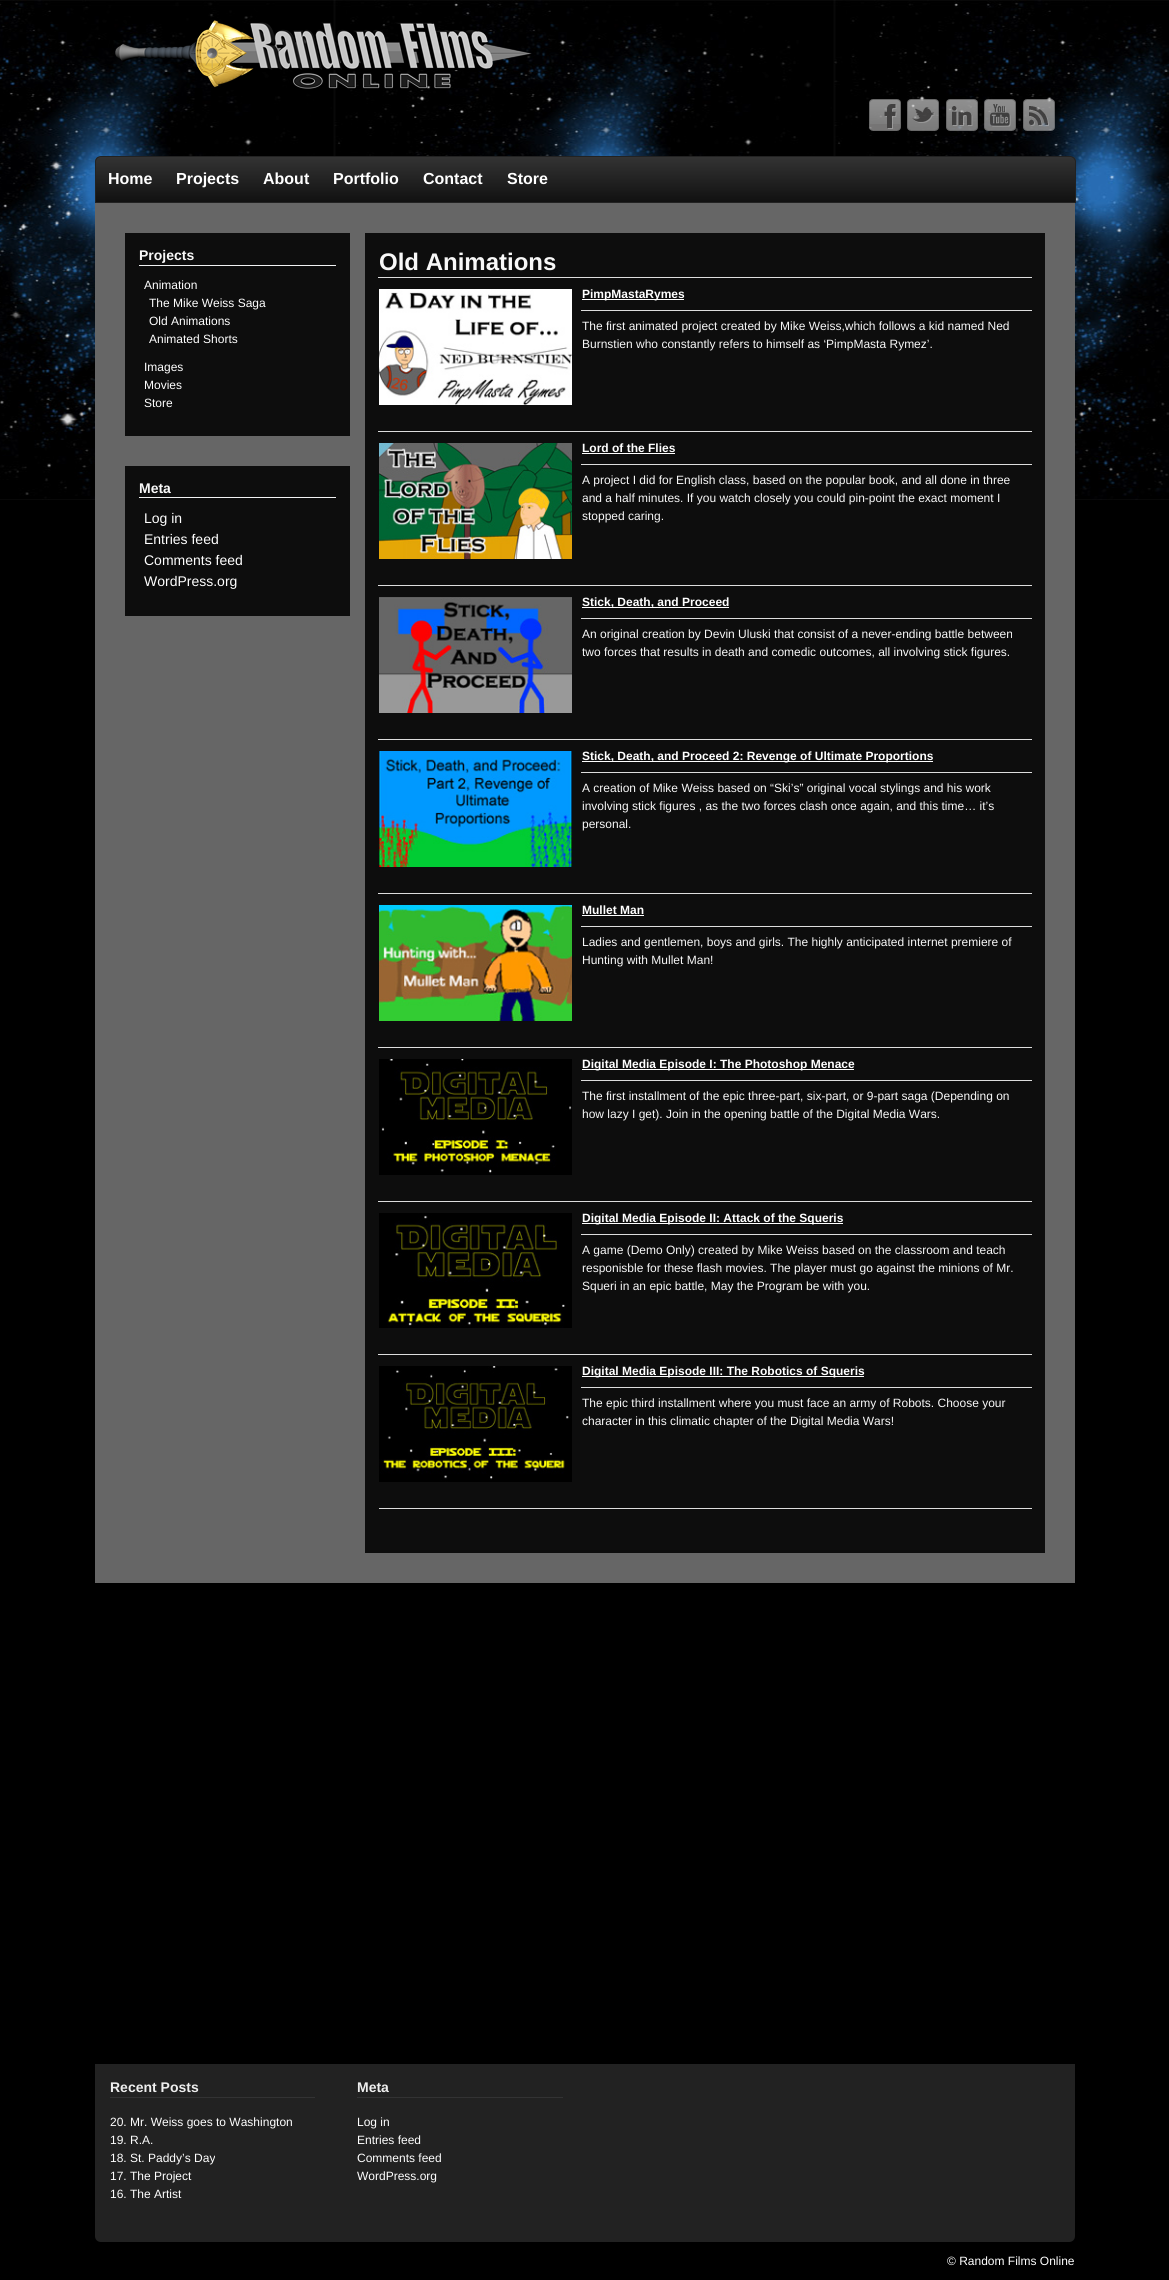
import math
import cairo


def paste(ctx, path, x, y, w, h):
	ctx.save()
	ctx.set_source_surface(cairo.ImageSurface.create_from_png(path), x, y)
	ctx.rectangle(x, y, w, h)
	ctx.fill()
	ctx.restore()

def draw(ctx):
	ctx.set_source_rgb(0, 0, 0)
	ctx.paint()
	paste(ctx, 'media/1.png', 0, 0, 1169, 500)
	paste(ctx, 'media/2.png', 115, 20, 417, 69)
	paste(ctx, 'media/3.png', 869, 99, 32, 32)
	paste(ctx, 'media/4.png', 907, 99, 32, 32)
	paste(ctx, 'media/5.png', 946, 99, 32, 32)
	paste(ctx, 'media/6.png', 984, 99, 32, 32)
	paste(ctx, 'media/7.png', 1023, 99, 32, 32)
	ctx.save()
	ctx.new_path()
	ctx.move_to(101, 156)
	ctx.line_to(1070, 156)
	ctx.curve_to(1073.5, 156, 1076, 158.5, 1076, 162)
	ctx.line_to(1076, 203)
	ctx.line_to(95, 203)
	ctx.line_to(95, 162)
	ctx.curve_to(95, 158.5, 97.5, 156, 101, 156)
	ctx.close_path()
	ctx.clip()
	gradient = cairo.LinearGradient(96, 157, 96, 202)
	gradient.add_color_stop_rgba(0, 0.2, 0.2, 0.2, 1)
	gradient.add_color_stop_rgba(1, 0.067, 0.067, 0.067, 1)
	ctx.set_source(gradient)
	ctx.rectangle(95, 157, 981, 45)
	ctx.fill()
	ctx.restore()
	ctx.new_path()
	ctx.move_to(101, 156.5)
	ctx.line_to(1070, 156.5)
	ctx.curve_to(1073, 156.5, 1075.5, 159, 1075.5, 162)
	ctx.line_to(1075.5, 202.5)
	ctx.line_to(95.5, 202.5)
	ctx.line_to(95.5, 162)
	ctx.curve_to(95.5, 159, 98, 156.5, 101, 156.5)
	ctx.close_path()
	ctx.set_source_rgb(0.133, 0.133, 0.133)
	ctx.set_line_width(1)
	ctx.stroke()
	ctx.select_font_face('Liberation Sans', cairo.FONT_SLANT_NORMAL, cairo.FONT_WEIGHT_BOLD)
	ctx.set_font_size(16)
	ctx.set_source_rgb(1, 1, 1)
	for x, y, s in [
		(108, 184, 'Home'),
		(176, 184, 'Projects'),
		(263, 184, 'About'),
		(333, 184, 'Portfolio'),
		(423, 184, 'Contact'),
		(507, 184, 'Store'),
	]:
		ctx.move_to(x, y)
		ctx.show_text(s)
	ctx.set_source_rgb(0.4, 0.4, 0.4)
	ctx.rectangle(95, 203, 980, 1380)
	ctx.fill()
	ctx.set_source_rgb(0.051, 0.051, 0.051)
	ctx.rectangle(125, 233, 225, 203)
	ctx.fill()
	ctx.set_source_rgb(0.945, 0.949, 0.953)
	ctx.rectangle(139, 265, 197, 1)
	ctx.fill()
	ctx.set_font_size(14)
	ctx.set_source_rgb(0.969, 0.969, 0.969)
	ctx.move_to(139, 260)
	ctx.show_text('Projects')
	ctx.select_font_face('Liberation Sans')
	ctx.set_font_size(12)
	ctx.set_source_rgb(1, 1, 1)
	for x, y, s in [
		(144, 289, 'Animation'),
		(149, 307, 'The Mike Weiss Saga'),
		(149, 325, 'Old Animations'),
		(149, 343, 'Animated Shorts'),
		(144, 371, 'Images'),
		(144, 389, 'Movies'),
		(144, 407, 'Store'),
	]:
		ctx.move_to(x, y)
		ctx.show_text(s)
	ctx.set_source_rgb(0.051, 0.051, 0.051)
	ctx.rectangle(125, 466, 225, 150)
	ctx.fill()
	ctx.set_source_rgb(0.945, 0.949, 0.953)
	ctx.rectangle(139, 497, 197, 1)
	ctx.fill()
	ctx.select_font_face('Liberation Sans', cairo.FONT_SLANT_NORMAL, cairo.FONT_WEIGHT_BOLD)
	ctx.set_font_size(14)
	ctx.set_source_rgb(0.969, 0.969, 0.969)
	ctx.move_to(139, 493)
	ctx.show_text('Meta')
	ctx.select_font_face('Liberation Sans')
	ctx.set_source_rgb(1, 1, 1)
	for x, y, s in [
		(144, 523, 'Log in'),
		(144, 544, 'Entries feed'),
		(144, 565, 'Comments feed'),
		(144, 586, 'WordPress.org'),
	]:
		ctx.move_to(x, y)
		ctx.show_text(s)
	ctx.set_source_rgb(0.051, 0.051, 0.051)
	ctx.rectangle(365, 233, 680, 1320)
	ctx.fill()
	ctx.select_font_face('Liberation Sans', cairo.FONT_SLANT_NORMAL, cairo.FONT_WEIGHT_BOLD)
	ctx.set_font_size(24)
	ctx.set_source_rgb(0.969, 0.969, 0.969)
	ctx.move_to(379, 270)
	ctx.show_text('Old Animations')
	ctx.set_source_rgb(0.867, 0.867, 0.867)
	ctx.rectangle(379, 1508, 653, 1)
	ctx.fill()
	paste(ctx, 'media/8.png', 379, 289, 193, 116)
	ctx.rectangle(378, 277, 654, 1)
	ctx.fill()
	ctx.set_source_rgb(1, 1, 1)
	ctx.rectangle(582, 299, 102, 1)
	ctx.fill()
	ctx.set_font_size(12)
	ctx.move_to(582, 298)
	ctx.show_text('PimpMastaRymes')
	ctx.set_source_rgb(0.867, 0.867, 0.867)
	ctx.rectangle(581, 310, 451, 1)
	ctx.fill()
	ctx.select_font_face('Liberation Sans')
	ctx.set_source_rgb(0.969, 0.969, 0.969)
	ctx.move_to(582, 330)
	ctx.show_text('The first animated project created by Mike Weiss,which follows a kid named Ned')
	ctx.move_to(582, 348)
	ctx.show_text('Burnstien who constantly refers to himself as ‘PimpMasta Rymez’.')
	paste(ctx, 'media/9.png', 379, 443, 193, 116)
	ctx.set_source_rgb(0.867, 0.867, 0.867)
	ctx.rectangle(378, 431, 654, 1)
	ctx.fill()
	ctx.select_font_face('Liberation Sans', cairo.FONT_SLANT_NORMAL, cairo.FONT_WEIGHT_BOLD)
	ctx.set_source_rgb(1, 1, 1)
	ctx.move_to(582, 452)
	ctx.show_text('Lord of the Flies')
	ctx.rectangle(582, 453, 93, 1)
	ctx.fill()
	ctx.set_source_rgb(0.867, 0.867, 0.867)
	ctx.rectangle(581, 464, 451, 1)
	ctx.fill()
	ctx.select_font_face('Liberation Sans')
	ctx.set_source_rgb(0.969, 0.969, 0.969)
	for x, y, s in [
		(582, 484, 'A project I did for English class, based on the popular book, and all done in three'),
		(582, 502, 'and a half minutes. If you watch closely you could pin-point the exact moment I'),
		(582, 520, 'stopped caring.'),
	]:
		ctx.move_to(x, y)
		ctx.show_text(s)
	paste(ctx, 'media/10.png', 379, 597, 193, 116)
	ctx.set_source_rgb(0.867, 0.867, 0.867)
	ctx.rectangle(378, 585, 654, 1)
	ctx.fill()
	ctx.set_source_rgb(1, 1, 1)
	ctx.rectangle(582, 607, 147, 1)
	ctx.fill()
	ctx.select_font_face('Liberation Sans', cairo.FONT_SLANT_NORMAL, cairo.FONT_WEIGHT_BOLD)
	ctx.move_to(582, 606)
	ctx.show_text('Stick, Death, and Proceed')
	ctx.set_source_rgb(0.867, 0.867, 0.867)
	ctx.rectangle(581, 618, 451, 1)
	ctx.fill()
	ctx.select_font_face('Liberation Sans')
	ctx.set_source_rgb(0.969, 0.969, 0.969)
	ctx.move_to(582, 638)
	ctx.show_text('An original creation by Devin Uluski that consist of a never-ending battle between')
	ctx.move_to(582, 656)
	ctx.show_text('two forces that results in death and comedic outcomes, all involving stick figures.')
	paste(ctx, 'media/11.png', 379, 751, 193, 116)
	ctx.set_source_rgb(0.867, 0.867, 0.867)
	ctx.rectangle(378, 739, 654, 1)
	ctx.fill()
	ctx.set_source_rgb(1, 1, 1)
	ctx.rectangle(582, 761, 351, 1)
	ctx.fill()
	ctx.select_font_face('Liberation Sans', cairo.FONT_SLANT_NORMAL, cairo.FONT_WEIGHT_BOLD)
	ctx.move_to(582, 760)
	ctx.show_text('Stick, Death, and Proceed 2: Revenge of Ultimate Proportions')
	ctx.set_source_rgb(0.867, 0.867, 0.867)
	ctx.rectangle(581, 772, 451, 1)
	ctx.fill()
	ctx.select_font_face('Liberation Sans')
	ctx.set_source_rgb(0.969, 0.969, 0.969)
	for x, y, s in [
		(582, 792, 'A creation of Mike Weiss based on “Ski’s” original vocal stylings and his work'),
		(582, 810, 'involving stick figures , as the two forces clash once again, and this time… it’s'),
		(582, 828, 'personal.'),
	]:
		ctx.move_to(x, y)
		ctx.show_text(s)
	paste(ctx, 'media/12.png', 379, 905, 193, 116)
	ctx.set_source_rgb(0.867, 0.867, 0.867)
	ctx.rectangle(378, 893, 654, 1)
	ctx.fill()
	ctx.select_font_face('Liberation Sans', cairo.FONT_SLANT_NORMAL, cairo.FONT_WEIGHT_BOLD)
	ctx.set_source_rgb(1, 1, 1)
	ctx.move_to(582, 914)
	ctx.show_text('Mullet Man')
	ctx.rectangle(582, 915, 62, 1)
	ctx.fill()
	ctx.set_source_rgb(0.867, 0.867, 0.867)
	ctx.rectangle(581, 926, 451, 1)
	ctx.fill()
	ctx.select_font_face('Liberation Sans')
	ctx.set_source_rgb(0.969, 0.969, 0.969)
	ctx.move_to(582, 946)
	ctx.show_text('Ladies and gentlemen, boys and girls. The highly anticipated internet premiere of')
	ctx.move_to(582, 964)
	ctx.show_text('Hunting with Mullet Man!')
	paste(ctx, 'media/13.png', 379, 1059, 193, 116)
	ctx.set_source_rgb(0.867, 0.867, 0.867)
	ctx.rectangle(378, 1047, 654, 1)
	ctx.fill()
	ctx.set_source_rgb(1, 1, 1)
	ctx.rectangle(582, 1069, 272, 1)
	ctx.fill()
	ctx.select_font_face('Liberation Sans', cairo.FONT_SLANT_NORMAL, cairo.FONT_WEIGHT_BOLD)
	ctx.move_to(582, 1068)
	ctx.show_text('Digital Media Episode I: The Photoshop Menace')
	ctx.set_source_rgb(0.867, 0.867, 0.867)
	ctx.rectangle(581, 1080, 451, 1)
	ctx.fill()
	ctx.select_font_face('Liberation Sans')
	ctx.set_source_rgb(0.969, 0.969, 0.969)
	ctx.move_to(582, 1100)
	ctx.show_text('The first installment of the epic three-part, six-part, or 9-part saga (Depending on')
	ctx.move_to(582, 1118)
	ctx.show_text('how lazy I get). Join in the opening battle of the Digital Media Wars.')
	paste(ctx, 'media/14.png', 379, 1213, 193, 115)
	ctx.set_source_rgb(0.867, 0.867, 0.867)
	ctx.rectangle(378, 1201, 654, 1)
	ctx.fill()
	ctx.set_source_rgb(1, 1, 1)
	ctx.rectangle(582, 1223, 261, 1)
	ctx.fill()
	ctx.select_font_face('Liberation Sans', cairo.FONT_SLANT_NORMAL, cairo.FONT_WEIGHT_BOLD)
	ctx.move_to(582, 1222)
	ctx.show_text('Digital Media Episode II: Attack of the Squeris')
	ctx.set_source_rgb(0.867, 0.867, 0.867)
	ctx.rectangle(581, 1234, 451, 1)
	ctx.fill()
	ctx.select_font_face('Liberation Sans')
	ctx.set_source_rgb(0.969, 0.969, 0.969)
	for x, y, s in [
		(582, 1254, 'A game (Demo Only) created by Mike Weiss based on the classroom and teach'),
		(582, 1272, 'responisble for these flash movies. The player must go against the minions of Mr.'),
		(582, 1290, 'Squeri in an epic battle, May the Program be with you.'),
	]:
		ctx.move_to(x, y)
		ctx.show_text(s)
	paste(ctx, 'media/15.png', 379, 1366, 193, 116)
	ctx.set_source_rgb(0.867, 0.867, 0.867)
	ctx.rectangle(378, 1354, 654, 1)
	ctx.fill()
	ctx.set_source_rgb(1, 1, 1)
	ctx.rectangle(582, 1376, 282, 1)
	ctx.fill()
	ctx.select_font_face('Liberation Sans', cairo.FONT_SLANT_NORMAL, cairo.FONT_WEIGHT_BOLD)
	ctx.move_to(582, 1375)
	ctx.show_text('Digital Media Episode III: The Robotics of Squeris')
	ctx.set_source_rgb(0.867, 0.867, 0.867)
	ctx.rectangle(581, 1387, 451, 1)
	ctx.fill()
	ctx.select_font_face('Liberation Sans')
	ctx.set_source_rgb(0.969, 0.969, 0.969)
	ctx.move_to(582, 1407)
	ctx.show_text('The epic third installment where you must face an army of Robots. Choose your')
	ctx.move_to(582, 1425)
	ctx.show_text('character in this climatic chapter of the Digital Media Wars!')
	ctx.set_source_rgb(0.133, 0.133, 0.133)
	ctx.new_path()
	ctx.move_to(95, 2064)
	ctx.line_to(1075, 2064)
	ctx.line_to(1075, 2236)
	ctx.curve_to(1075, 2239.5, 1072.5, 2242, 1069, 2242)
	ctx.line_to(101, 2242)
	ctx.curve_to(97.5, 2242, 95, 2239.5, 95, 2236)
	ctx.close_path()
	ctx.fill()
	ctx.set_source_rgb(0.2, 0.2, 0.2)
	ctx.rectangle(110, 2097, 205, 1)
	ctx.fill()
	ctx.select_font_face('Liberation Sans', cairo.FONT_SLANT_NORMAL, cairo.FONT_WEIGHT_BOLD)
	ctx.set_font_size(14)
	ctx.set_source_rgb(0.933, 0.933, 0.933)
	ctx.move_to(110, 2092)
	ctx.show_text('Recent Posts')
	ctx.select_font_face('Liberation Sans')
	ctx.set_font_size(12)
	ctx.set_source_rgb(1, 1, 1)
	for x, y, s in [
		(110, 2126, '20. Mr. Weiss goes to Washington'),
		(110, 2144, '19. R.A.'),
		(110, 2162, '18. St. Paddy’s Day'),
		(110, 2180, '17. The Project'),
		(110, 2198, '16. The Artist'),
	]:
		ctx.move_to(x, y)
		ctx.show_text(s)
	ctx.set_source_rgb(0.2, 0.2, 0.2)
	ctx.rectangle(357, 2097, 206, 1)
	ctx.fill()
	ctx.select_font_face('Liberation Sans', cairo.FONT_SLANT_NORMAL, cairo.FONT_WEIGHT_BOLD)
	ctx.set_font_size(14)
	ctx.set_source_rgb(0.933, 0.933, 0.933)
	ctx.move_to(357, 2092)
	ctx.show_text('Meta')
	ctx.select_font_face('Liberation Sans')
	ctx.set_font_size(12)
	ctx.set_source_rgb(1, 1, 1)
	for x, y, s in [
		(357, 2126, 'Log in'),
		(357, 2144, 'Entries feed'),
		(357, 2162, 'Comments feed'),
		(357, 2180, 'WordPress.org'),
		(947, 2265, '© Random Films Online'),
	]:
		ctx.move_to(x, y)
		ctx.show_text(s)


surface = cairo.ImageSurface(cairo.FORMAT_RGB24, 1169, 2280)
ctx = cairo.Context(surface)
options = cairo.FontOptions()
options.set_hint_metrics(cairo.HINT_METRICS_OFF)
options.set_hint_style(cairo.HINT_STYLE_NONE)
ctx.set_font_options(options)
ctx.set_miter_limit(4)
draw(ctx)
surface.write_to_png('image.png')
